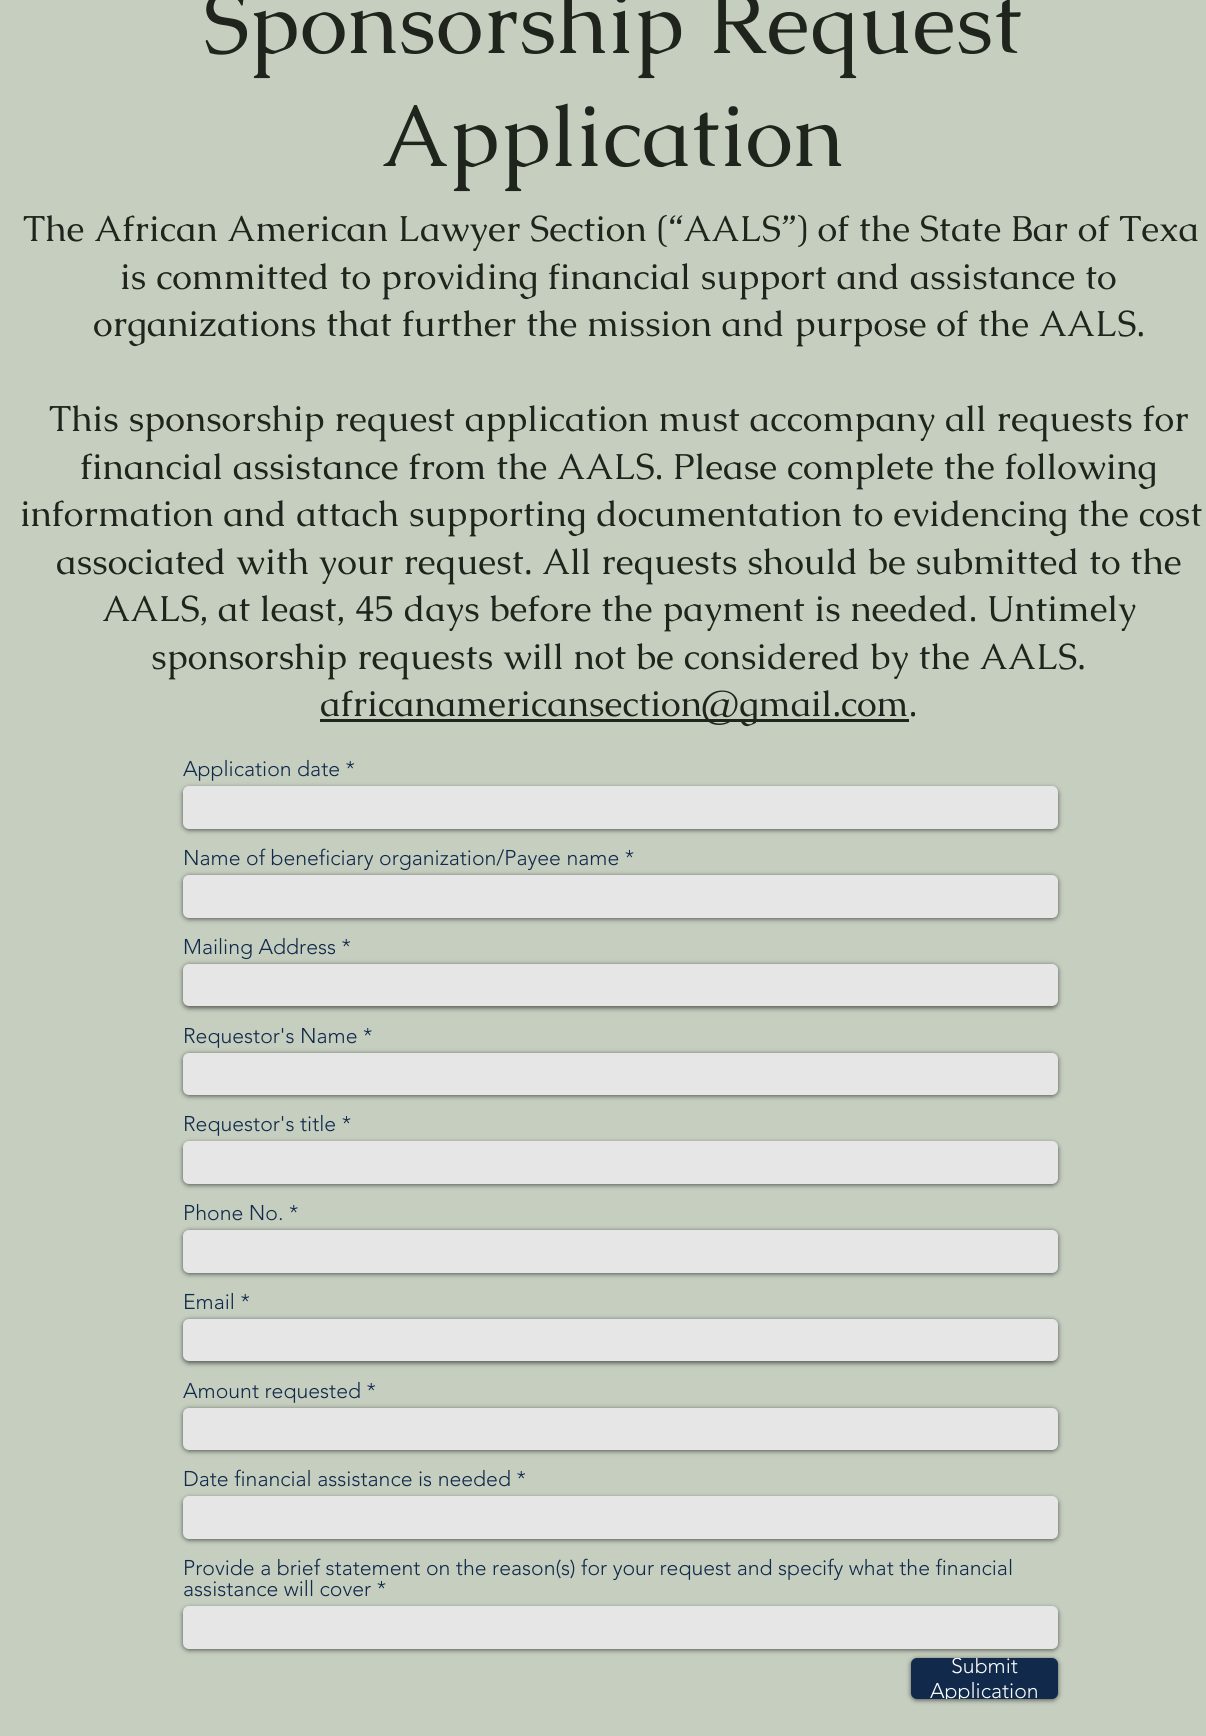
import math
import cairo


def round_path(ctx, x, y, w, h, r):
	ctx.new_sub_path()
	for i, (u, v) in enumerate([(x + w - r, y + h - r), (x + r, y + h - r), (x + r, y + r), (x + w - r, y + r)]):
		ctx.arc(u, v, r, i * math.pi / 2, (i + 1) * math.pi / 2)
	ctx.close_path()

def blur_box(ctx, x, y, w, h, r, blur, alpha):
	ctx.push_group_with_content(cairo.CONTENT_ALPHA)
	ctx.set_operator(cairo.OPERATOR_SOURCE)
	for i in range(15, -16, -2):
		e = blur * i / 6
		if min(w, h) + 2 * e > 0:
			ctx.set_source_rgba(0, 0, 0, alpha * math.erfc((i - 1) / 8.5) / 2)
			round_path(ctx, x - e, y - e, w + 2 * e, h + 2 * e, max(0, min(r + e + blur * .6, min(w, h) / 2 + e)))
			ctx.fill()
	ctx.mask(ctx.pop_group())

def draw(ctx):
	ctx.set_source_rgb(0.773, 0.808, 0.749)
	ctx.paint()
	ctx.select_font_face('Caudex')
	ctx.set_font_size(87.5)
	ctx.set_source_rgb(0.122, 0.141, 0.11)
	ctx.move_to(203, 53)
	ctx.show_text('Sponsorship Request')
	ctx.move_to(381, 166)
	ctx.show_text('Application')
	ctx.set_font_size(36.25)
	for x, y, s in [
		(23, 241, 'The African American Lawyer Section (“AALS”) of the State Bar of Texa'),
		(120, 289, 'is committed to providing financial support and assistance to'),
		(93, 336, 'organizations that further the mission and purpose of the AALS.'),
		(49, 431, 'This sponsorship request application must accompany all requests for'),
		(80, 479, 'financial assistance from the AALS. Please complete the following'),
		(20, 526, 'information and attach supporting documentation to evidencing the cost'),
		(56, 574, 'associated with your request. All requests should be submitted to the'),
		(102, 621, 'AALS, at least, 45 days before the payment is needed. Untimely'),
		(151, 669, 'sponsorship requests will not be considered by the AALS.'),
	]:
		ctx.move_to(x, y)
		ctx.show_text(s)
	ctx.rectangle(320, 719, 589, 3)
	ctx.fill()
	ctx.move_to(320, 716)
	ctx.show_text('africanamericansection@gmail.com.')
	ctx.select_font_face('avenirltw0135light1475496 Light')
	ctx.set_font_size(21.25)
	ctx.set_source_rgb(0.067, 0.165, 0.294)
	ctx.move_to(183, 776)
	ctx.show_text('Application date *')
	ctx.set_source_rgb(0, 0, 0)
	blur_box(ctx, 183, 788, 875, 42, 6, 2.5, 0.6)
	ctx.set_source_rgb(0.902, 0.902, 0.902)
	round_path(ctx, 183, 786, 875, 43, 6)
	ctx.fill()
	ctx.set_source_rgb(0.067, 0.165, 0.294)
	ctx.move_to(183, 865)
	ctx.show_text('Name of beneficiary organization/Payee name *')
	ctx.set_source_rgb(0, 0, 0)
	blur_box(ctx, 183, 876, 875, 43, 6, 2.5, 0.6)
	ctx.set_source_rgb(0.902, 0.902, 0.902)
	round_path(ctx, 183, 875, 875, 43, 6)
	ctx.fill()
	ctx.set_source_rgb(0.067, 0.165, 0.294)
	ctx.move_to(183, 954)
	ctx.show_text('Mailing Address *')
	ctx.set_source_rgb(0, 0, 0)
	blur_box(ctx, 183, 965, 875, 43, 6, 2.5, 0.6)
	ctx.set_source_rgb(0.902, 0.902, 0.902)
	round_path(ctx, 183, 964, 875, 42, 6)
	ctx.fill()
	ctx.set_source_rgb(0.067, 0.165, 0.294)
	ctx.move_to(183, 1043)
	ctx.show_text('Requestor\'s Name *')
	ctx.set_source_rgb(0, 0, 0)
	blur_box(ctx, 183, 1054, 875, 42, 6, 2.5, 0.6)
	ctx.set_source_rgb(0.902, 0.902, 0.902)
	round_path(ctx, 183, 1053, 875, 42, 6)
	ctx.fill()
	ctx.set_source_rgb(0.067, 0.165, 0.294)
	ctx.move_to(183, 1131)
	ctx.show_text('Requestor\'s title *')
	ctx.set_source_rgb(0, 0, 0)
	blur_box(ctx, 183, 1143, 875, 42, 6, 2.5, 0.6)
	ctx.set_source_rgb(0.902, 0.902, 0.902)
	round_path(ctx, 183, 1141, 875, 43, 6)
	ctx.fill()
	ctx.set_source_rgb(0.067, 0.165, 0.294)
	ctx.move_to(183, 1220)
	ctx.show_text('Phone No. *')
	ctx.set_source_rgb(0, 0, 0)
	blur_box(ctx, 183, 1231, 875, 43, 6, 2.5, 0.6)
	ctx.set_source_rgb(0.902, 0.902, 0.902)
	round_path(ctx, 183, 1230, 875, 43, 6)
	ctx.fill()
	ctx.set_source_rgb(0.067, 0.165, 0.294)
	ctx.move_to(183, 1309)
	ctx.show_text('Email *')
	ctx.set_source_rgb(0, 0, 0)
	blur_box(ctx, 183, 1320, 875, 43, 6, 2.5, 0.6)
	ctx.set_source_rgb(0.902, 0.902, 0.902)
	round_path(ctx, 183, 1319, 875, 42, 6)
	ctx.fill()
	ctx.set_source_rgb(0.067, 0.165, 0.294)
	ctx.move_to(183, 1398)
	ctx.show_text('Amount requested *')
	ctx.set_source_rgb(0, 0, 0)
	blur_box(ctx, 183, 1409, 875, 42, 6, 2.5, 0.6)
	ctx.set_source_rgb(0.902, 0.902, 0.902)
	round_path(ctx, 183, 1408, 875, 42, 6)
	ctx.fill()
	ctx.set_source_rgb(0.067, 0.165, 0.294)
	ctx.move_to(183, 1486)
	ctx.show_text('Date financial assistance is needed *')
	ctx.set_source_rgb(0, 0, 0)
	blur_box(ctx, 183, 1498, 875, 42, 6, 2.5, 0.6)
	ctx.set_source_rgb(0.902, 0.902, 0.902)
	round_path(ctx, 183, 1496, 875, 43, 6)
	ctx.fill()
	ctx.set_source_rgb(0.067, 0.165, 0.294)
	ctx.move_to(183, 1575)
	ctx.show_text('Provide a brief statement on the reason(s) for your request and specify what the financial')
	ctx.move_to(183, 1596)
	ctx.show_text('assistance will cover *')
	ctx.set_source_rgb(0, 0, 0)
	blur_box(ctx, 183, 1608, 875, 42, 6, 2.5, 0.6)
	ctx.set_source_rgb(0.902, 0.902, 0.902)
	round_path(ctx, 183, 1606, 875, 43, 6)
	ctx.fill()
	ctx.set_source_rgb(0, 0, 0)
	blur_box(ctx, 911, 1659, 147, 41, 6, 2.5, 0.6)
	ctx.set_source_rgb(0.067, 0.165, 0.294)
	round_path(ctx, 911, 1658, 147, 41, 6)
	ctx.fill()
	ctx.save()
	ctx.rectangle(911, 1658, 147, 41)
	ctx.clip()
	ctx.set_source_rgb(0.988, 0.988, 0.988)
	ctx.move_to(951, 1673)
	ctx.show_text('Submit')
	ctx.move_to(930, 1698)
	ctx.show_text('Application')
	ctx.restore()


surface = cairo.ImageSurface(cairo.FORMAT_RGB24, 1206, 1736)
ctx = cairo.Context(surface)
options = cairo.FontOptions()
options.set_hint_metrics(cairo.HINT_METRICS_OFF)
options.set_hint_style(cairo.HINT_STYLE_NONE)
ctx.set_font_options(options)
ctx.set_miter_limit(4)
draw(ctx)
surface.write_to_png('image.png')
